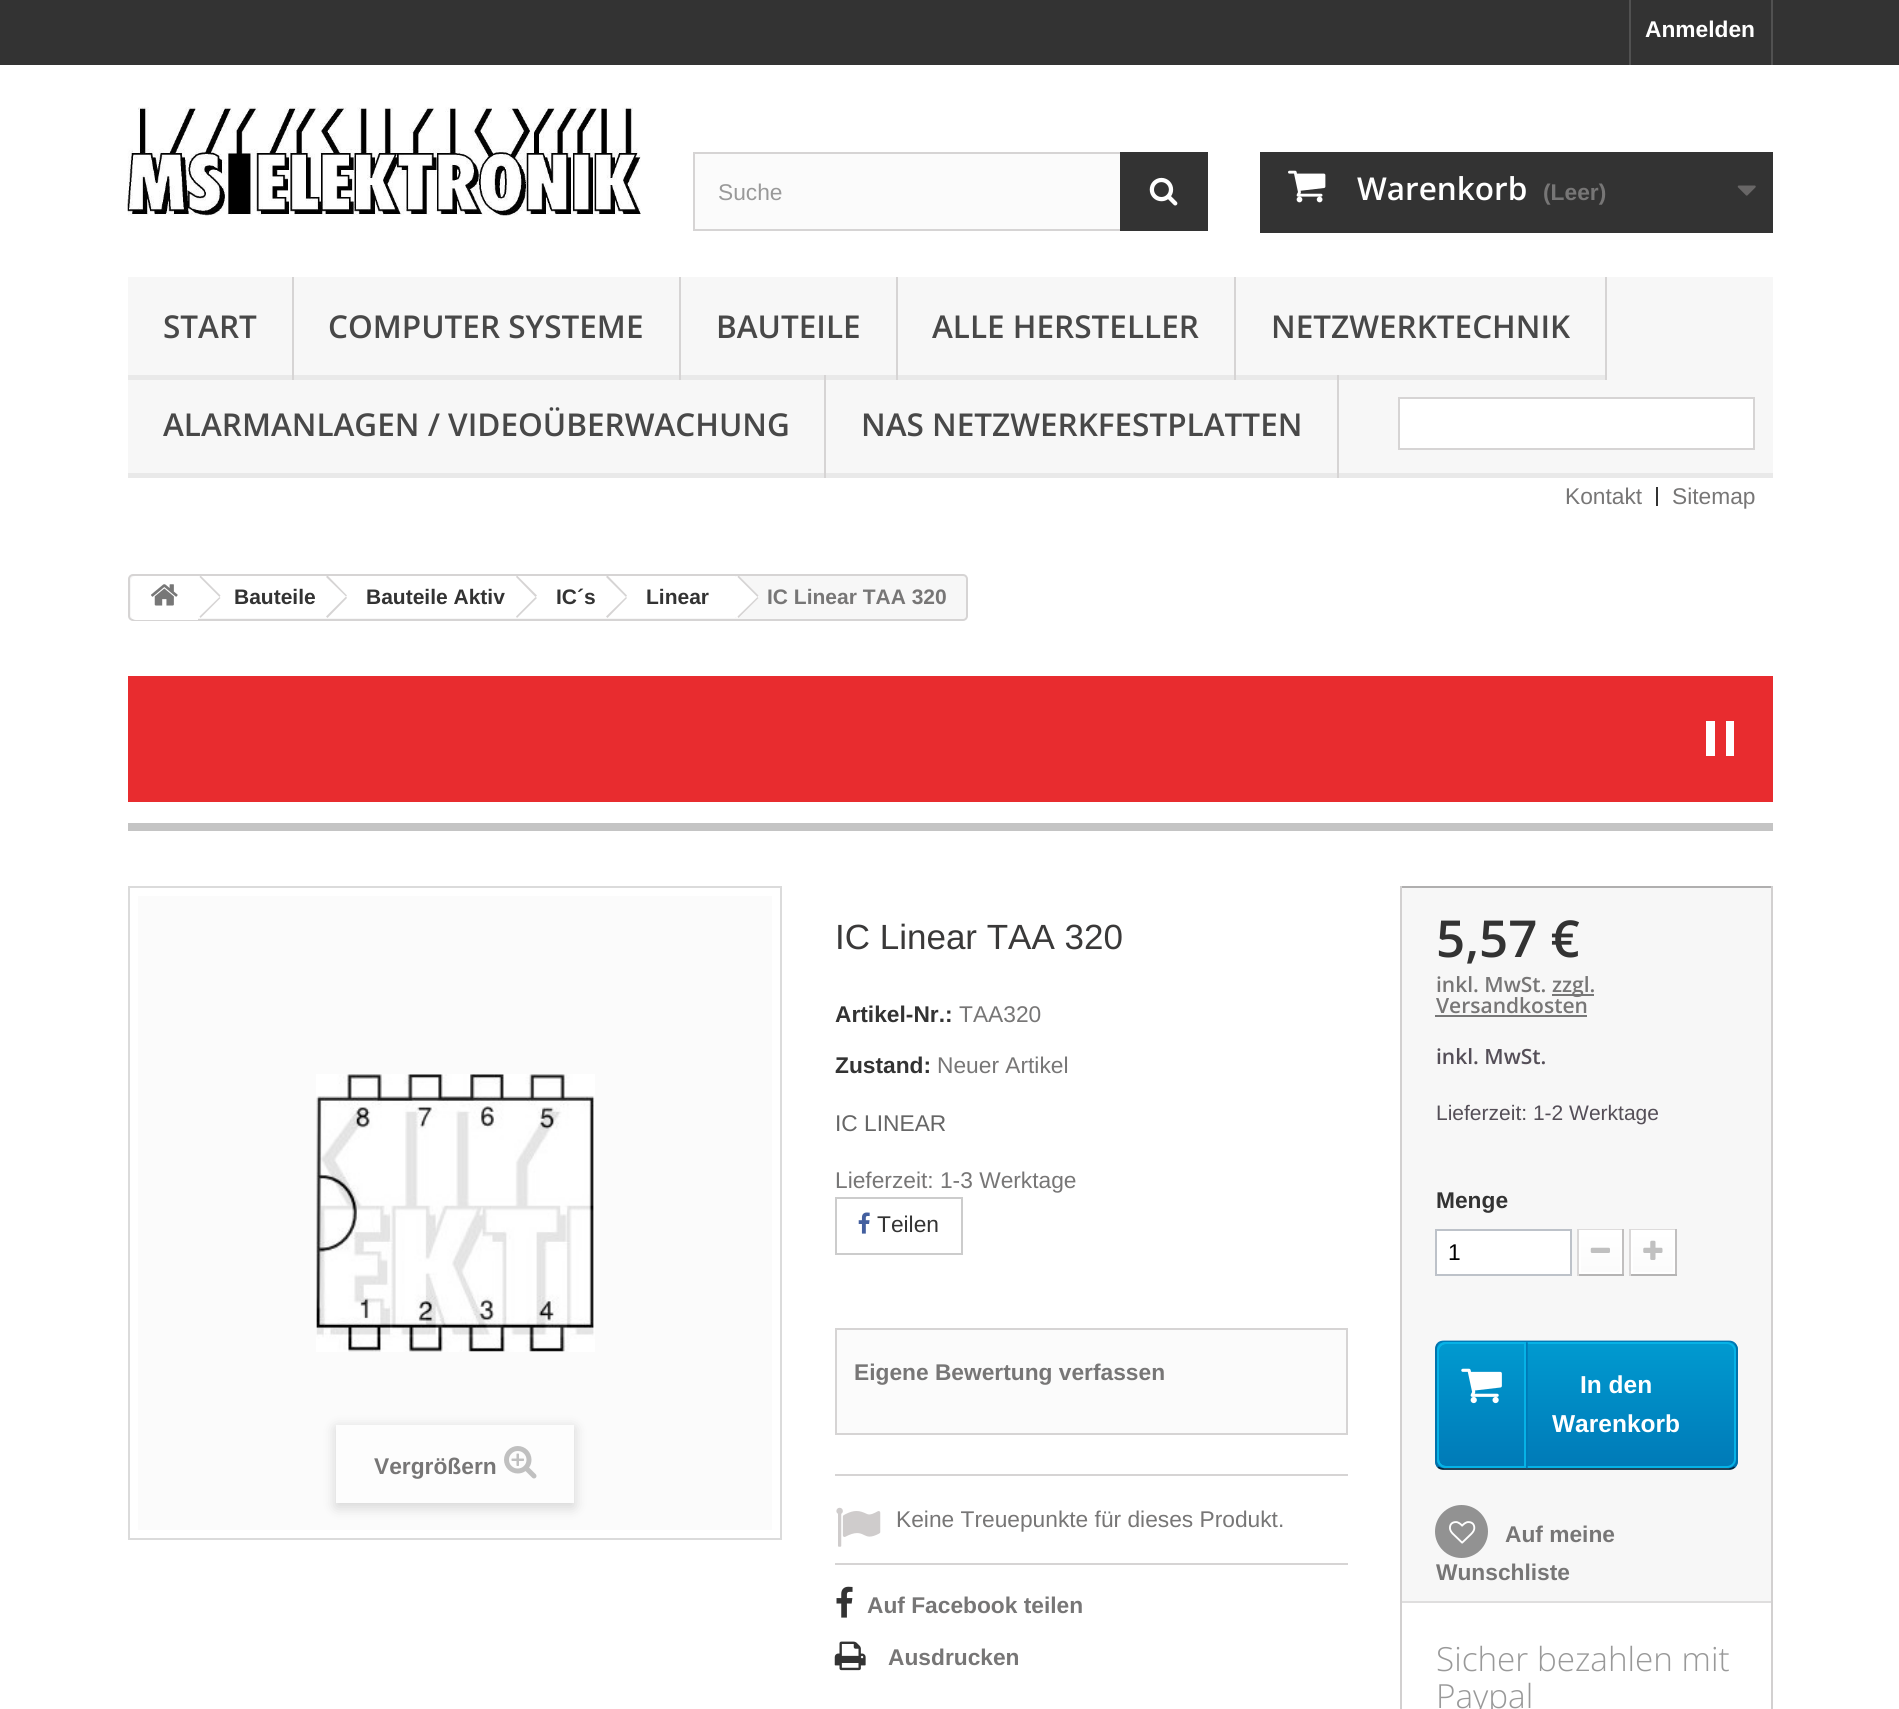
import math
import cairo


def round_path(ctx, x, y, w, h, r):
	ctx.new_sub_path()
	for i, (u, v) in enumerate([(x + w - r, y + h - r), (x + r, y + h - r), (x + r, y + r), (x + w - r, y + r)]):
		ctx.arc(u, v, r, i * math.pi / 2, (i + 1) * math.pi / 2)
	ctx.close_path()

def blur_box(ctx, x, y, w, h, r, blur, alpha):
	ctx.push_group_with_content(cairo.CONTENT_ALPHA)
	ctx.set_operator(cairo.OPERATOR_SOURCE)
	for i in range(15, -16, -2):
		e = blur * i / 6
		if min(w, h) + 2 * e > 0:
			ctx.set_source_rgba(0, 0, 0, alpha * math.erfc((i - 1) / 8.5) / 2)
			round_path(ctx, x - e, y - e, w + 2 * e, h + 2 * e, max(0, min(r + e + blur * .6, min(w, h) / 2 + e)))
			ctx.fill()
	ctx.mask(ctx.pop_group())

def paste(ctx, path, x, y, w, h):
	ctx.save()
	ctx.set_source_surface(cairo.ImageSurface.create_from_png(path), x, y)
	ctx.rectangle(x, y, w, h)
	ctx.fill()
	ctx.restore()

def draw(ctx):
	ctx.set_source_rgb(1, 1, 1)
	ctx.paint()
	ctx.set_source_rgb(0.2, 0.2, 0.2)
	ctx.rectangle(0, 0, 1899, 65)
	ctx.fill()
	ctx.set_source_rgb(0.318, 0.318, 0.318)
	ctx.rectangle(1771, 0, 2, 65)
	ctx.rectangle(1629, 0, 2, 65)
	ctx.fill()
	ctx.select_font_face('Liberation Sans', cairo.FONT_SLANT_NORMAL, cairo.FONT_WEIGHT_BOLD)
	ctx.set_font_size(22.75)
	ctx.set_source_rgb(1, 1, 1)
	ctx.move_to(1645, 37)
	ctx.show_text('Anmelden')
	paste(ctx, 'media/1.png', 127, 107, 514, 109)
	ctx.set_source_rgb(0.984, 0.984, 0.984)
	ctx.rectangle(695, 154, 425, 75)
	ctx.fill()
	ctx.rectangle(694, 153, 513, 77)
	ctx.set_source_rgb(0.839, 0.831, 0.831)
	ctx.stroke()
	ctx.select_font_face('Liberation Sans')
	ctx.set_source_rgb(0.6, 0.6, 0.6)
	ctx.move_to(718, 200)
	ctx.show_text('Suche')
	ctx.set_source_rgb(0.2, 0.2, 0.2)
	ctx.rectangle(1120, 152, 88, 79)
	ctx.fill()
	paste(ctx, 'media/2.png', 1149, 177, 29, 29)
	ctx.rectangle(1260, 152, 513, 81)
	ctx.fill()
	paste(ctx, 'media/3.png', 1288, 170, 38, 33)
	ctx.select_font_face('Open Sans SemiBold')
	ctx.set_font_size(31.5)
	ctx.set_source_rgb(1, 1, 1)
	ctx.move_to(1357, 200)
	ctx.show_text('Warenkorb')
	ctx.select_font_face('Liberation Sans', cairo.FONT_SLANT_NORMAL, cairo.FONT_WEIGHT_BOLD)
	ctx.set_font_size(22.75)
	ctx.set_source_rgb(0.467, 0.463, 0.463)
	ctx.move_to(1543, 200)
	ctx.show_text('(Leer)')
	paste(ctx, 'media/4.png', 1737, 185, 19, 11)
	ctx.set_source_rgb(0.965, 0.965, 0.965)
	ctx.rectangle(128, 277, 1645, 196)
	ctx.fill()
	ctx.set_source_rgb(0.914, 0.914, 0.914)
	ctx.rectangle(128, 473, 1645, 5)
	ctx.fill()
	ctx.set_source_rgb(0.839, 0.831, 0.831)
	ctx.rectangle(292, 277, 2, 103)
	ctx.fill()
	ctx.set_source_rgb(0.914, 0.914, 0.914)
	ctx.rectangle(128, 375, 164, 5)
	ctx.fill()
	ctx.select_font_face('Open Sans SemiBold')
	ctx.set_font_size(31.5)
	ctx.set_source_rgb(0.282, 0.282, 0.282)
	ctx.move_to(163, 338)
	ctx.show_text('START')
	ctx.set_source_rgb(0.839, 0.831, 0.831)
	ctx.rectangle(679, 277, 2, 103)
	ctx.fill()
	ctx.set_source_rgb(0.914, 0.914, 0.914)
	ctx.rectangle(294, 375, 385, 5)
	ctx.fill()
	ctx.set_source_rgb(0.282, 0.282, 0.282)
	ctx.move_to(328, 338)
	ctx.show_text('COMPUTER SYSTEME')
	ctx.set_source_rgb(0.839, 0.831, 0.831)
	ctx.rectangle(896, 277, 2, 103)
	ctx.fill()
	ctx.set_source_rgb(0.914, 0.914, 0.914)
	ctx.rectangle(681, 375, 215, 5)
	ctx.fill()
	ctx.set_source_rgb(0.282, 0.282, 0.282)
	ctx.move_to(716, 338)
	ctx.show_text('BAUTEILE')
	ctx.set_source_rgb(0.839, 0.831, 0.831)
	ctx.rectangle(1234, 277, 2, 103)
	ctx.fill()
	ctx.set_source_rgb(0.914, 0.914, 0.914)
	ctx.rectangle(898, 375, 336, 5)
	ctx.fill()
	ctx.set_source_rgb(0.282, 0.282, 0.282)
	ctx.move_to(932, 338)
	ctx.show_text('ALLE HERSTELLER')
	ctx.set_source_rgb(0.839, 0.831, 0.831)
	ctx.rectangle(1605, 277, 2, 103)
	ctx.fill()
	ctx.set_source_rgb(0.914, 0.914, 0.914)
	ctx.rectangle(1236, 375, 369, 5)
	ctx.fill()
	ctx.set_source_rgb(0.282, 0.282, 0.282)
	ctx.move_to(1271, 338)
	ctx.show_text('NETZWERKTECHNIK')
	ctx.set_source_rgb(0.839, 0.831, 0.831)
	ctx.rectangle(824, 375, 2, 103)
	ctx.fill()
	ctx.set_source_rgb(0.282, 0.282, 0.282)
	ctx.move_to(163, 436)
	ctx.show_text('ALARMANLAGEN / VIDEOÜBERWACHUNG')
	ctx.set_source_rgb(0.839, 0.831, 0.831)
	ctx.rectangle(1337, 375, 2, 103)
	ctx.fill()
	ctx.set_source_rgb(0.282, 0.282, 0.282)
	ctx.move_to(861, 436)
	ctx.show_text('NAS NETZWERKFESTPLATTEN')
	ctx.set_source_rgb(1, 1, 1)
	ctx.rectangle(1399, 398, 355, 51)
	ctx.fill_preserve()
	ctx.set_source_rgb(0.839, 0.831, 0.831)
	ctx.stroke()
	ctx.select_font_face('Liberation Sans')
	ctx.set_font_size(22.75)
	ctx.set_source_rgb(0.467, 0.463, 0.463)
	ctx.move_to(1565, 504)
	ctx.show_text('Kontakt')
	ctx.set_source_rgb(0.2, 0.2, 0.2)
	ctx.rectangle(1656, 487, 2, 19)
	ctx.fill()
	ctx.set_source_rgb(0.467, 0.463, 0.463)
	ctx.move_to(1672, 504)
	ctx.show_text('Sitemap')
	ctx.set_source_rgb(0.965, 0.965, 0.965)
	round_path(ctx, 129, 575, 838, 45, 4)
	ctx.fill_preserve()
	ctx.set_source_rgb(0.839, 0.831, 0.831)
	ctx.stroke()
	ctx.set_source_rgb(1, 1, 1)
	ctx.new_path()
	ctx.move_to(136, 576)
	ctx.line_to(198, 576)
	ctx.line_to(198, 620)
	ctx.line_to(136, 620)
	ctx.curve_to(133, 620, 131, 618, 131, 615)
	ctx.line_to(131, 581)
	ctx.curve_to(131, 578, 133, 576, 136, 576)
	ctx.close_path()
	ctx.fill()
	paste(ctx, 'media/5.png', 151, 584, 27, 22)
	ctx.rectangle(198, 576, 129, 42)
	ctx.fill()
	ctx.set_source_rgb(0.839, 0.831, 0.831)
	ctx.new_path()
	ctx.move_to(200.5, 575.5)
	ctx.line_to(220.5, 595.5)
	ctx.line_to(219.5, 597)
	ctx.line_to(199.5, 577)
	ctx.close_path()
	ctx.move_to(219.5, 597)
	ctx.line_to(220.5, 598)
	ctx.line_to(200.5, 618)
	ctx.line_to(199.5, 616.5)
	ctx.close_path()
	ctx.fill()
	ctx.select_font_face('Liberation Sans', cairo.FONT_SLANT_NORMAL, cairo.FONT_WEIGHT_BOLD)
	ctx.set_font_size(21)
	ctx.set_source_rgb(0.2, 0.2, 0.2)
	ctx.move_to(234, 604)
	ctx.show_text('Bauteile')
	ctx.set_source_rgb(1, 1, 1)
	ctx.new_path()
	ctx.move_to(346, 577)
	ctx.line_to(363, 594)
	ctx.curve_to(365, 596, 365, 598, 363, 599)
	ctx.line_to(346, 617)
	ctx.curve_to(345, 618, 343, 618, 341, 617)
	ctx.line_to(324, 599)
	ctx.curve_to(322, 598, 322, 596, 324, 594)
	ctx.line_to(341, 577)
	ctx.curve_to(343, 576, 345, 576, 346, 577)
	ctx.close_path()
	ctx.fill()
	ctx.rectangle(327, 576, 191, 42)
	ctx.fill()
	ctx.set_source_rgb(0.839, 0.831, 0.831)
	ctx.new_path()
	ctx.move_to(327.5, 575.5)
	ctx.line_to(347, 595.5)
	ctx.line_to(346, 596.5)
	ctx.line_to(326, 577)
	ctx.close_path()
	ctx.fill()
	ctx.new_path()
	ctx.move_to(346, 596.5)
	ctx.line_to(347, 598)
	ctx.line_to(327.5, 618)
	ctx.line_to(326, 616.5)
	ctx.close_path()
	ctx.fill()
	ctx.set_source_rgb(0.2, 0.2, 0.2)
	ctx.move_to(366, 604)
	ctx.show_text('Bauteile Aktiv')
	ctx.set_source_rgb(1, 1, 1)
	ctx.new_path()
	ctx.move_to(536, 577)
	ctx.line_to(553, 594)
	ctx.curve_to(554, 596, 554, 598, 553, 599)
	ctx.line_to(536, 617)
	ctx.curve_to(534, 618, 532, 618, 531, 617)
	ctx.line_to(513, 599)
	ctx.curve_to(512, 598, 512, 596, 513, 594)
	ctx.line_to(531, 577)
	ctx.curve_to(532, 576, 534, 576, 536, 577)
	ctx.close_path()
	ctx.fill()
	ctx.rectangle(518, 576, 89, 42)
	ctx.fill()
	ctx.set_source_rgb(0.839, 0.831, 0.831)
	ctx.new_path()
	ctx.move_to(517, 575.5)
	ctx.line_to(537, 595.5)
	ctx.line_to(535.5, 597)
	ctx.line_to(516, 577)
	ctx.close_path()
	ctx.move_to(535.5, 597)
	ctx.line_to(537, 598)
	ctx.line_to(517, 618)
	ctx.line_to(516, 616.5)
	ctx.close_path()
	ctx.fill()
	ctx.set_source_rgb(0.2, 0.2, 0.2)
	ctx.move_to(556, 604)
	ctx.show_text('IC´s')
	ctx.set_source_rgb(1, 1, 1)
	ctx.new_path()
	ctx.move_to(626, 577)
	ctx.line_to(644, 594)
	ctx.curve_to(645, 596, 645, 598, 644, 599)
	ctx.line_to(626, 617)
	ctx.curve_to(625, 618, 623, 618, 621, 617)
	ctx.line_to(604, 599)
	ctx.curve_to(603, 598, 603, 596, 604, 594)
	ctx.line_to(621, 577)
	ctx.curve_to(623, 576, 625, 576, 626, 577)
	ctx.close_path()
	ctx.fill()
	ctx.rectangle(607, 576, 128, 42)
	ctx.fill()
	ctx.set_source_rgb(0.839, 0.831, 0.831)
	ctx.new_path()
	ctx.move_to(607.5, 575.5)
	ctx.line_to(627, 595.5)
	ctx.line_to(626, 597)
	ctx.line_to(606, 577)
	ctx.close_path()
	ctx.move_to(626, 597)
	ctx.line_to(627, 598)
	ctx.line_to(607.5, 618)
	ctx.line_to(606, 616.5)
	ctx.close_path()
	ctx.fill()
	ctx.set_source_rgb(0.2, 0.2, 0.2)
	ctx.move_to(646, 604)
	ctx.show_text('Linear')
	ctx.set_source_rgb(1, 1, 1)
	ctx.new_path()
	ctx.move_to(740, 577)
	ctx.line_to(757, 594)
	ctx.curve_to(759, 596, 759, 598, 757, 599)
	ctx.line_to(740, 617)
	ctx.curve_to(739, 618, 736, 618, 735, 617)
	ctx.line_to(718, 599)
	ctx.curve_to(716, 598, 716, 596, 718, 594)
	ctx.line_to(735, 577)
	ctx.curve_to(736, 576, 739, 576, 740, 577)
	ctx.close_path()
	ctx.fill()
	ctx.set_source_rgb(0.839, 0.831, 0.831)
	ctx.new_path()
	ctx.move_to(738.5, 575.5)
	ctx.line_to(758.5, 595.5)
	ctx.line_to(757.5, 597)
	ctx.line_to(737.5, 577)
	ctx.close_path()
	ctx.move_to(757.5, 597)
	ctx.line_to(758.5, 598)
	ctx.line_to(738.5, 618)
	ctx.line_to(737.5, 616.5)
	ctx.close_path()
	ctx.fill()
	ctx.set_source_rgb(0.467, 0.463, 0.463)
	ctx.move_to(767, 604)
	ctx.show_text('IC Linear TAA 320')
	ctx.set_source_rgb(0.91, 0.173, 0.184)
	ctx.rectangle(128, 676, 1645, 126)
	ctx.fill()
	ctx.set_source_rgb(1, 1, 1)
	ctx.rectangle(1726, 721, 8, 35)
	ctx.rectangle(1706, 721, 9, 35)
	ctx.fill()
	ctx.set_source_rgb(0.769, 0.769, 0.769)
	ctx.rectangle(128, 823, 1645, 8)
	ctx.fill()
	ctx.rectangle(129, 887, 652, 652)
	ctx.set_source_rgb(0.859, 0.859, 0.859)
	ctx.stroke()
	ctx.set_source_rgb(0.984, 0.984, 0.984)
	ctx.rectangle(138, 896, 634, 634)
	ctx.fill()
	paste(ctx, 'media/6.png', 316, 1074, 279, 278)
	ctx.set_source_rgb(0, 0, 0)
	blur_box(ctx, 336, 1428, 238, 79, 0, 7, 0.16)
	ctx.set_source_rgb(0.992, 0.992, 0.992)
	ctx.rectangle(336, 1425, 238, 78)
	ctx.fill()
	ctx.set_font_size(22.75)
	ctx.set_source_rgb(0.467, 0.463, 0.463)
	ctx.move_to(374, 1474)
	ctx.show_text('Vergrößern')
	paste(ctx, 'media/7.png', 504, 1446, 33, 33)
	ctx.select_font_face('Liberation Sans')
	ctx.set_font_size(35)
	ctx.set_source_rgb(0.227, 0.224, 0.224)
	ctx.move_to(835, 949)
	ctx.show_text('IC Linear TAA 320')
	ctx.select_font_face('Liberation Sans', cairo.FONT_SLANT_NORMAL, cairo.FONT_WEIGHT_BOLD)
	ctx.set_font_size(22.75)
	ctx.set_source_rgb(0.2, 0.2, 0.2)
	ctx.move_to(835, 1022)
	ctx.show_text('Artikel-Nr.:')
	ctx.select_font_face('Liberation Sans')
	ctx.set_source_rgb(0.467, 0.463, 0.463)
	ctx.move_to(959, 1022)
	ctx.show_text('TAA320')
	ctx.select_font_face('Liberation Sans', cairo.FONT_SLANT_NORMAL, cairo.FONT_WEIGHT_BOLD)
	ctx.set_source_rgb(0.2, 0.2, 0.2)
	ctx.move_to(835, 1073)
	ctx.show_text('Zustand:')
	ctx.select_font_face('Liberation Sans')
	ctx.set_source_rgb(0.467, 0.463, 0.463)
	ctx.move_to(937, 1073)
	ctx.show_text('Neuer Artikel')
	ctx.set_source_rgb(0.4, 0.4, 0.4)
	ctx.move_to(835, 1131)
	ctx.show_text('IC LINEAR')
	ctx.set_source_rgb(0.467, 0.463, 0.463)
	ctx.move_to(835, 1188)
	ctx.show_text('Lieferzeit: 1-3 Werktage')
	ctx.rectangle(836, 1198, 126, 56)
	ctx.set_source_rgb(0.8, 0.8, 0.8)
	ctx.stroke()
	paste(ctx, 'media/8.png', 858, 1212, 12, 22)
	ctx.set_source_rgb(0.2, 0.2, 0.2)
	ctx.move_to(877, 1232)
	ctx.show_text('Teilen')
	ctx.set_source_rgb(0.984, 0.984, 0.984)
	ctx.rectangle(836, 1329, 511, 105)
	ctx.fill_preserve()
	ctx.set_source_rgb(0.839, 0.831, 0.831)
	ctx.stroke()
	ctx.select_font_face('Liberation Sans', cairo.FONT_SLANT_NORMAL, cairo.FONT_WEIGHT_BOLD)
	ctx.set_source_rgb(0.467, 0.463, 0.463)
	ctx.move_to(854, 1380)
	ctx.show_text('Eigene Bewertung verfassen')
	ctx.set_source_rgb(0.839, 0.831, 0.831)
	ctx.rectangle(835, 1474, 513, 2)
	ctx.fill()
	ctx.rectangle(835, 1563, 513, 2)
	ctx.fill()
	paste(ctx, 'media/9.png', 836, 1507, 45, 40)
	ctx.select_font_face('Liberation Sans')
	ctx.set_source_rgb(0.467, 0.463, 0.463)
	ctx.move_to(896, 1527)
	ctx.show_text('Keine Treuepunkte für dieses Produkt.')
	paste(ctx, 'media/10.png', 836, 1586, 17, 32)
	ctx.select_font_face('Liberation Sans', cairo.FONT_SLANT_NORMAL, cairo.FONT_WEIGHT_BOLD)
	ctx.move_to(867, 1613)
	ctx.show_text('Auf Facebook teilen')
	paste(ctx, 'media/11.png', 834, 1641, 32, 30)
	ctx.move_to(888, 1665)
	ctx.show_text('Ausdrucken')
	ctx.set_source_rgb(0.965, 0.965, 0.965)
	ctx.rectangle(1402, 888, 369, 713)
	ctx.fill()
	ctx.set_source_rgb(0.69, 0.686, 0.686)
	ctx.rectangle(1400, 886, 373, 2)
	ctx.fill()
	ctx.set_source_rgb(0.824, 0.816, 0.816)
	ctx.rectangle(1771, 886, 2, 823)
	ctx.rectangle(1400, 886, 2, 823)
	ctx.fill()
	ctx.select_font_face('Open Sans SemiBold')
	ctx.set_font_size(51)
	ctx.set_source_rgb(0.2, 0.2, 0.2)
	ctx.move_to(1436, 957)
	ctx.show_text('5,57 €')
	ctx.set_font_size(21)
	ctx.set_source_rgb(0.467, 0.463, 0.463)
	ctx.move_to(1436, 992)
	ctx.show_text('inkl. MwSt.')
	ctx.set_source_rgb(0.467, 0.467, 0.467)
	ctx.rectangle(1552, 994, 42, 2)
	ctx.fill()
	ctx.set_source_rgb(0.467, 0.463, 0.463)
	ctx.move_to(1552, 992)
	ctx.show_text('zzgl.')
	ctx.move_to(1436, 1013)
	ctx.show_text('Versandkosten')
	ctx.set_source_rgb(0.467, 0.467, 0.467)
	ctx.rectangle(1435, 1015, 152, 2)
	ctx.fill()
	ctx.set_source_rgb(0.333, 0.31, 0.345)
	ctx.move_to(1436, 1064)
	ctx.show_text('inkl. MwSt.')
	ctx.select_font_face('Liberation Sans')
	ctx.move_to(1436, 1120)
	ctx.show_text('Lieferzeit: 1-2 Werktage')
	ctx.select_font_face('Liberation Sans', cairo.FONT_SLANT_NORMAL, cairo.FONT_WEIGHT_BOLD)
	ctx.set_font_size(22.75)
	ctx.set_source_rgb(0.2, 0.2, 0.2)
	ctx.move_to(1436, 1208)
	ctx.show_text('Menge')
	ctx.set_source_rgb(1, 1, 1)
	ctx.rectangle(1436, 1230, 135, 45)
	ctx.fill_preserve()
	ctx.set_source_rgb(0.741, 0.761, 0.788)
	ctx.stroke()
	ctx.select_font_face('Liberation Sans')
	ctx.set_source_rgb(0, 0, 0)
	ctx.move_to(1448, 1260)
	ctx.show_text('1')
	ctx.set_source_rgb(0.871, 0.863, 0.863)
	ctx.rectangle(1577, 1229, 47, 1)
	ctx.fill()
	ctx.set_source_rgb(0.757, 0.749, 0.749)
	ctx.rectangle(1622, 1229, 2, 47)
	ctx.fill()
	ctx.set_source_rgb(0.71, 0.706, 0.706)
	ctx.rectangle(1577, 1274, 47, 2)
	ctx.fill()
	ctx.set_source_rgb(0.855, 0.847, 0.847)
	ctx.rectangle(1577, 1229, 2, 47)
	ctx.fill()
	gradient = cairo.LinearGradient(1600, 1232, 1600, 1272)
	gradient.add_color_stop_rgba(0, 1, 1, 1, 1)
	gradient.add_color_stop_rgba(1, 0.984, 0.984, 0.984, 1)
	ctx.set_source(gradient)
	ctx.rectangle(1581, 1232, 39, 40)
	ctx.fill()
	ctx.rectangle(1580, 1231, 41, 42)
	ctx.set_source_rgb(1, 1, 1)
	ctx.stroke()
	paste(ctx, 'media/12.png', 1590, 1247, 20, 6)
	ctx.set_source_rgb(0.871, 0.863, 0.863)
	ctx.rectangle(1629, 1229, 48, 1)
	ctx.fill()
	ctx.set_source_rgb(0.757, 0.749, 0.749)
	ctx.rectangle(1675, 1229, 2, 47)
	ctx.fill()
	ctx.set_source_rgb(0.71, 0.706, 0.706)
	ctx.rectangle(1629, 1274, 48, 2)
	ctx.fill()
	ctx.set_source_rgb(0.855, 0.847, 0.847)
	ctx.rectangle(1629, 1229, 2, 47)
	ctx.fill()
	gradient = cairo.LinearGradient(1653, 1232, 1653, 1272)
	gradient.add_color_stop_rgba(0, 1, 1, 1, 1)
	gradient.add_color_stop_rgba(1, 0.984, 0.984, 0.984, 1)
	ctx.set_source(gradient)
	ctx.rectangle(1633, 1232, 40, 40)
	ctx.fill()
	ctx.rectangle(1632, 1231, 42, 42)
	ctx.set_source_rgb(1, 1, 1)
	ctx.stroke()
	paste(ctx, 'media/13.png', 1643, 1240, 20, 20)
	ctx.save()
	round_path(ctx, 1435, 1341, 303, 129, 9)
	ctx.clip()
	gradient = cairo.LinearGradient(1586, 1342, 1586, 1468)
	gradient.add_color_stop_rgba(0, 0, 0.604, 0.816, 1)
	gradient.add_color_stop_rgba(1, 0, 0.478, 0.718, 1)
	ctx.set_source(gradient)
	ctx.rectangle(1435, 1342, 303, 126)
	ctx.fill()
	ctx.restore()
	ctx.new_path()
	ctx.move_to(1438, 1343.5)
	ctx.curve_to(1439.5, 1342, 1441.5, 1341.5, 1444, 1341.5)
	ctx.line_to(1729, 1341.5)
	ctx.curve_to(1731, 1341.5, 1733, 1342, 1734.5, 1343.5)
	ctx.set_source_rgb(0, 0.475, 0.714)
	ctx.set_line_width(1.8)
	ctx.stroke()
	ctx.new_path()
	ctx.move_to(1734.5, 1343.5)
	ctx.curve_to(1736, 1345, 1737, 1347, 1737, 1349)
	ctx.line_to(1737, 1461)
	ctx.curve_to(1737, 1463.5, 1736, 1465.5, 1734.5, 1467)
	ctx.set_source_rgb(0, 0.435, 0.659)
	ctx.stroke()
	ctx.new_path()
	ctx.move_to(1734.5, 1467)
	ctx.curve_to(1733, 1468.5, 1731, 1469, 1729, 1469)
	ctx.line_to(1444, 1469)
	ctx.curve_to(1441.5, 1469, 1439.5, 1468.5, 1438, 1467)
	ctx.set_source_rgb(0.004, 0.153, 0.251)
	ctx.stroke()
	ctx.new_path()
	ctx.move_to(1438, 1467)
	ctx.curve_to(1436.5, 1465.5, 1436, 1463.5, 1436, 1461)
	ctx.line_to(1436, 1349)
	ctx.curve_to(1436, 1347, 1436.5, 1345, 1438, 1343.5)
	ctx.set_source_rgb(0, 0.435, 0.659)
	ctx.stroke()
	round_path(ctx, 1438, 1343, 297, 124, 8)
	ctx.set_source_rgb(0.024, 0.698, 0.902)
	ctx.set_line_width(2)
	ctx.stroke()
	ctx.new_path()
	ctx.move_to(1446, 1343)
	ctx.line_to(1525, 1343)
	ctx.line_to(1525, 1467)
	ctx.line_to(1446, 1467)
	ctx.curve_to(1441.5, 1467, 1438, 1463.5, 1438, 1459)
	ctx.line_to(1438, 1351)
	ctx.curve_to(1438, 1346.5, 1441.5, 1343, 1446, 1343)
	ctx.close_path()
	ctx.stroke()
	paste(ctx, 'media/14.png', 1461, 1368, 41, 36)
	paste(ctx, 'media/15.png', 1526, 1342, 2, 127)
	ctx.select_font_face('Liberation Sans', cairo.FONT_SLANT_NORMAL, cairo.FONT_WEIGHT_BOLD)
	ctx.set_font_size(24.5)
	ctx.set_source_rgb(1, 1, 1)
	ctx.move_to(1580, 1393)
	ctx.show_text('In den')
	ctx.move_to(1552, 1432)
	ctx.show_text('Warenkorb')
	ctx.set_source_rgb(0.573, 0.573, 0.573)
	ctx.new_path()
	ctx.arc(1461.5, 1531.5, 26.5, 0, 2 * math.pi)
	ctx.fill()
	paste(ctx, 'media/16.png', 1449, 1521, 27, 23)
	ctx.set_font_size(22.75)
	ctx.set_source_rgb(0.467, 0.463, 0.463)
	ctx.move_to(1505, 1542)
	ctx.show_text('Auf meine')
	ctx.move_to(1436, 1580)
	ctx.show_text('Wunschliste')
	ctx.set_source_rgb(0.875, 0.871, 0.871)
	ctx.rectangle(1402, 1601, 369, 2)
	ctx.fill()
	ctx.select_font_face('Open Sans Light')
	ctx.set_font_size(33.25)
	ctx.set_source_rgb(0.6, 0.6, 0.6)
	ctx.move_to(1436, 1671)
	ctx.show_text('Sicher bezahlen mit')
	ctx.move_to(1436, 1708)
	ctx.show_text('Paypal')


surface = cairo.ImageSurface(cairo.FORMAT_RGB24, 1899, 1709)
ctx = cairo.Context(surface)
options = cairo.FontOptions()
options.set_hint_metrics(cairo.HINT_METRICS_OFF)
options.set_hint_style(cairo.HINT_STYLE_NONE)
ctx.set_font_options(options)
ctx.set_miter_limit(4)
draw(ctx)
surface.write_to_png('image.png')
